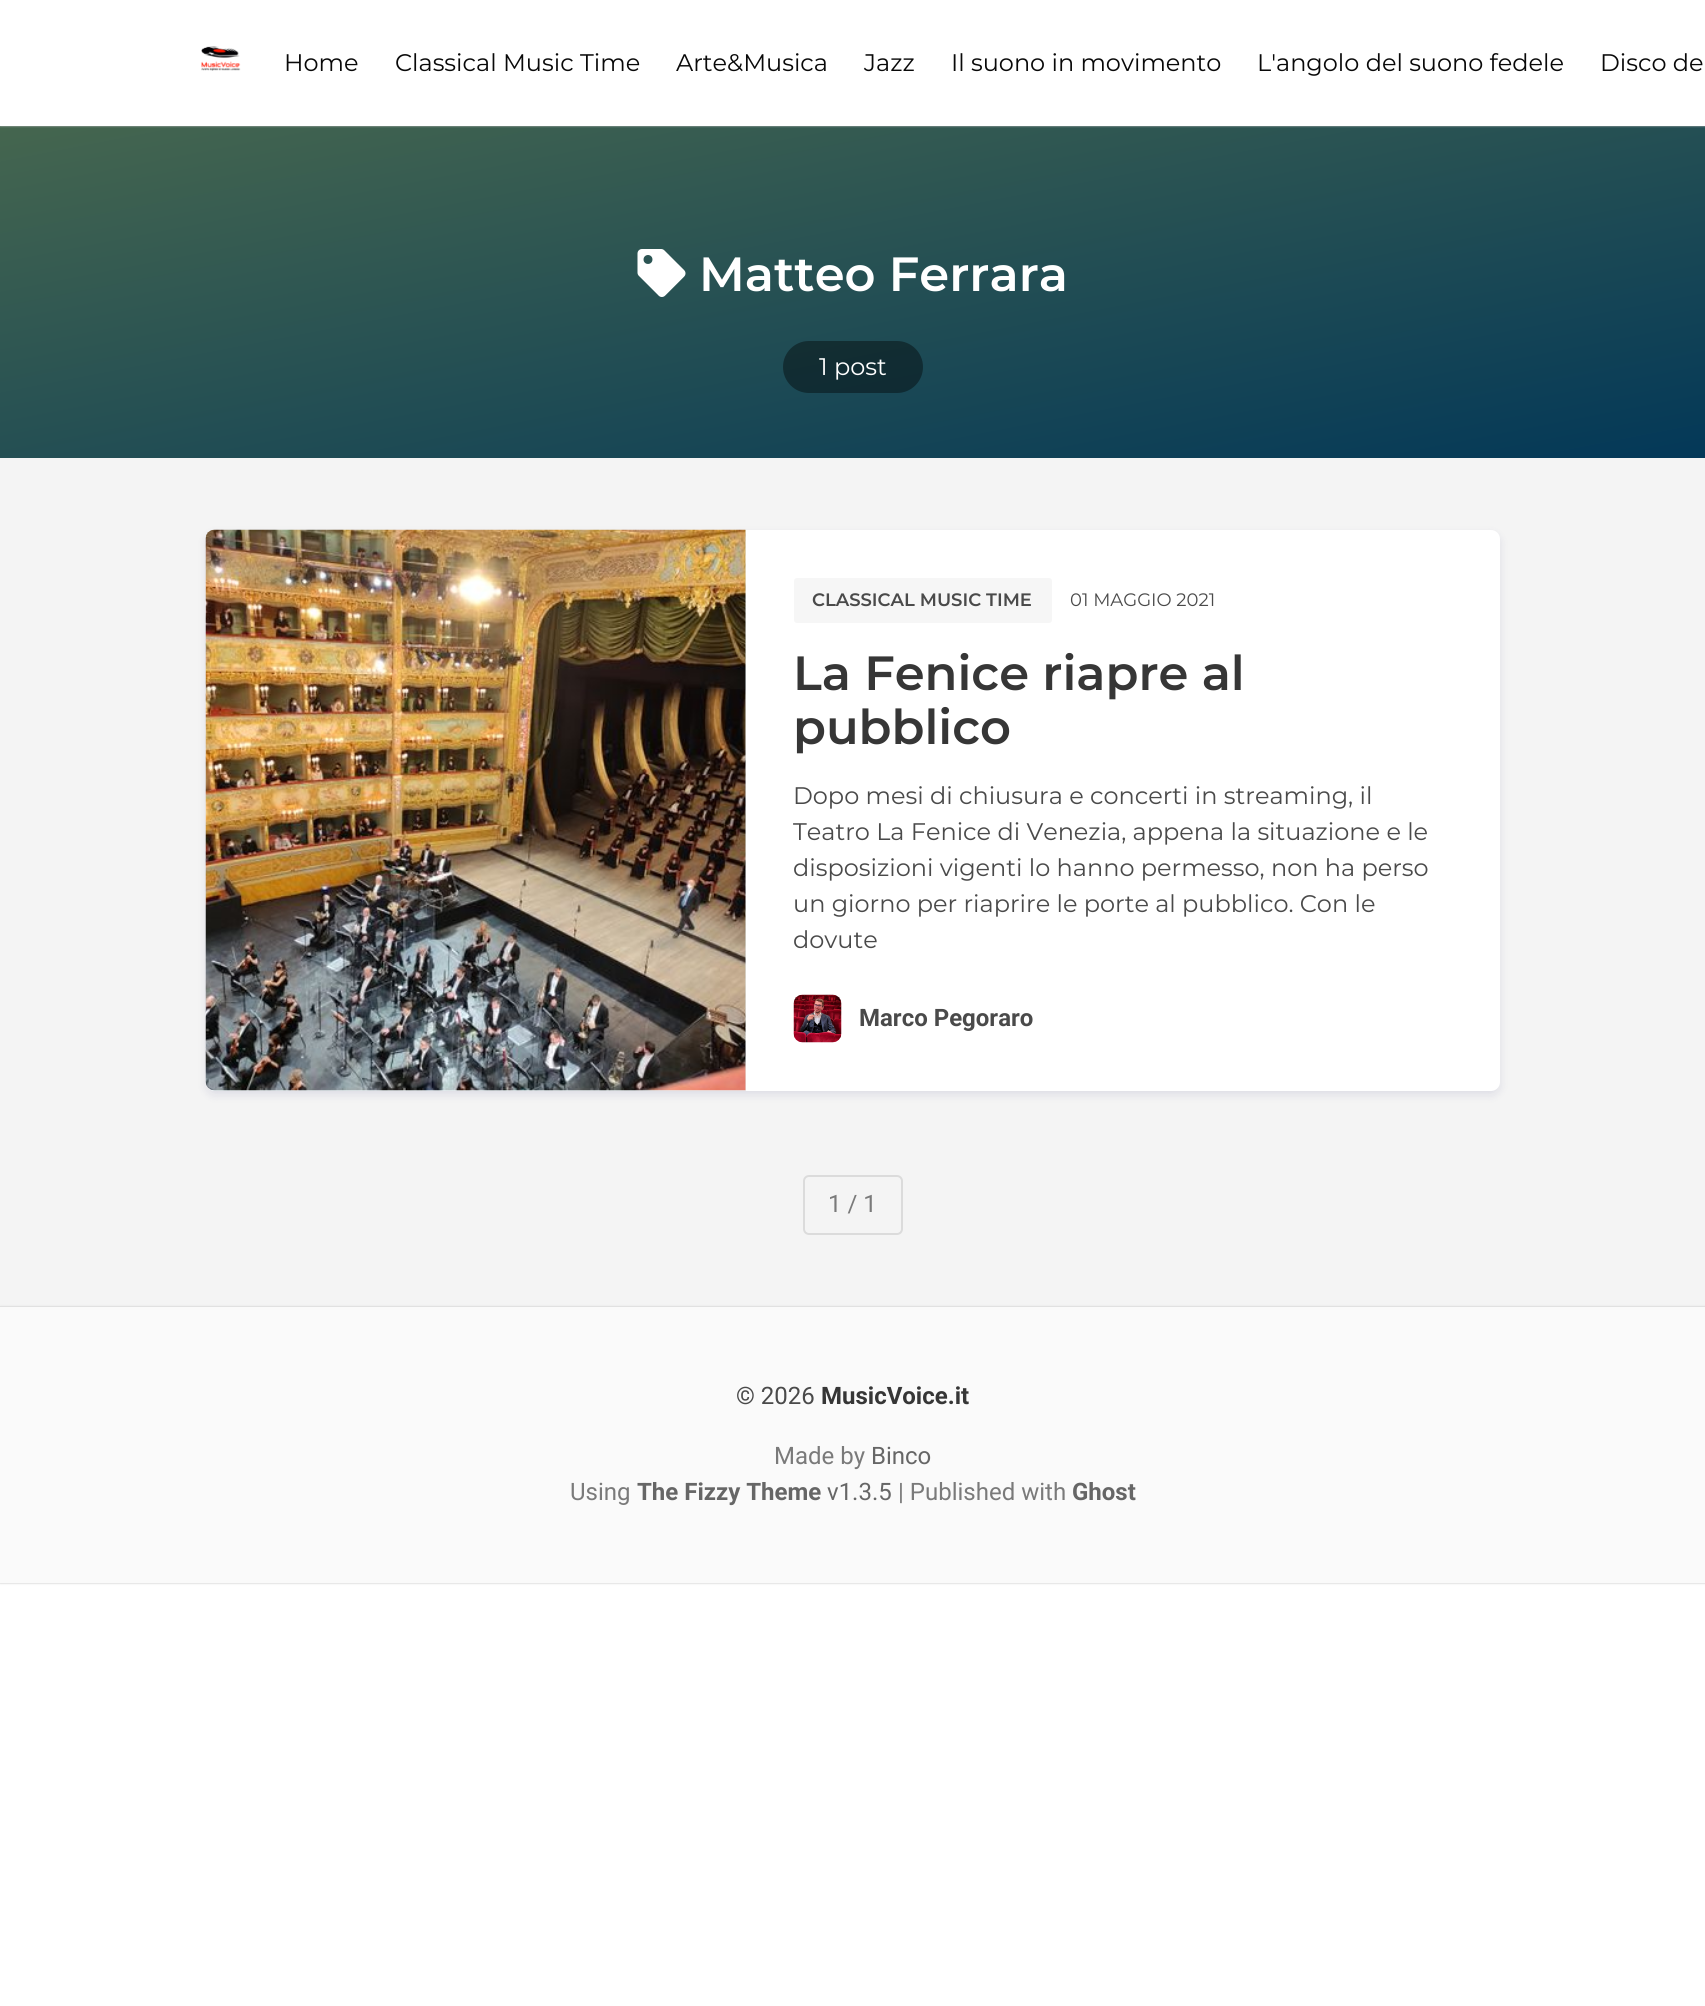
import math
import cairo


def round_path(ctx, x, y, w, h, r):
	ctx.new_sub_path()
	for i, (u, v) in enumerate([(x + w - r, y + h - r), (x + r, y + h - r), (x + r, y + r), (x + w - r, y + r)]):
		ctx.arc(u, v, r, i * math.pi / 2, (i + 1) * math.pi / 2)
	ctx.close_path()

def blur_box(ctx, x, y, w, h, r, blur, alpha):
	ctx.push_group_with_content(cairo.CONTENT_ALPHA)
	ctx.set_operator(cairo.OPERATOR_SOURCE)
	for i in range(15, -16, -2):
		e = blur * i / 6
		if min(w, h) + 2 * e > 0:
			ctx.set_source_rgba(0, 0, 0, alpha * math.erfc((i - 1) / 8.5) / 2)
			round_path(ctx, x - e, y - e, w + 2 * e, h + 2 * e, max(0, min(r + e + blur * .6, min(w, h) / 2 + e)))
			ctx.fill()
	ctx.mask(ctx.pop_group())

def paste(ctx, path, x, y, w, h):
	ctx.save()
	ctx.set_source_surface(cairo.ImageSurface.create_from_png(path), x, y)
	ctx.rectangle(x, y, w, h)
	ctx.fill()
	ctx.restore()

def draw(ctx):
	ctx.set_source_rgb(1, 1, 1)
	ctx.paint()
	ctx.set_source_rgb(0.957, 0.957, 0.957)
	ctx.rectangle(0, 458, 1705, 849)
	ctx.fill()
	gradient = cairo.LinearGradient(791, -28, 915, 611)
	gradient.add_color_stop_rgba(0, 0.271, 0.4, 0.31, 1)
	gradient.add_color_stop_rgba(1, 0.012, 0.22, 0.345, 1)
	ctx.set_source(gradient)
	ctx.rectangle(0, 126, 1705, 332)
	ctx.fill()
	ctx.save()
	ctx.rectangle(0, 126, 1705, 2)
	ctx.clip()
	ctx.set_source_rgb(0.733, 0.733, 0.733)
	blur_box(ctx, 0, 0, 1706, 126, 0, 1, 1)
	ctx.restore()
	paste(ctx, 'media/1.png', 201, 46, 40, 25)
	ctx.select_font_face('Montserrat')
	ctx.set_font_size(24)
	ctx.set_source_rgb(0.039, 0.039, 0.039)
	for x, y, s in [
		(284, 71, 'Home'),
		(395, 71, 'Classical Music Time'),
		(676, 71, 'Arte&Musica'),
		(864, 71, 'Jazz'),
		(951, 71, 'Il suono in movimento'),
		(1257, 71, 'L\'angolo del suono fedele'),
		(1600, 71, 'Disco de'),
	]:
		ctx.move_to(x, y)
		ctx.show_text(s)
	paste(ctx, 'media/2.png', 637, 249, 49, 48)
	ctx.select_font_face('Montserrat SemiBold')
	ctx.set_font_size(48)
	ctx.set_source_rgb(1, 1, 1)
	ctx.move_to(699, 291)
	ctx.show_text('Matteo Ferrara')
	ctx.set_source_rgba(0, 0, 0, 0.4)
	round_path(ctx, 783, 341, 140, 52, 26)
	ctx.fill()
	ctx.select_font_face('Montserrat')
	ctx.set_font_size(24)
	ctx.set_source_rgb(1, 1, 1)
	ctx.move_to(819, 375)
	ctx.show_text('1 post')
	ctx.set_source_rgb(0.047, 0.047, 0.369)
	blur_box(ctx, 206, 534, 1294, 561, 9, 4.5, 0.1)
	ctx.set_source_rgb(1, 1, 1)
	round_path(ctx, 206, 530, 1294, 561, 9)
	ctx.fill()
	ctx.set_source_rgb(0.914, 0.941, 0.953)
	ctx.new_path()
	ctx.move_to(215, 530)
	ctx.line_to(746, 530)
	ctx.line_to(746, 1091)
	ctx.line_to(215, 1091)
	ctx.curve_to(210, 1091, 206, 1087, 206, 1082)
	ctx.line_to(206, 539)
	ctx.curve_to(206, 534, 210, 530, 215, 530)
	ctx.close_path()
	ctx.fill()
	paste(ctx, 'media/3.png', 205, 529, 541, 562)
	ctx.set_source_rgb(0.961, 0.961, 0.961)
	round_path(ctx, 794, 578, 258, 45, 3)
	ctx.fill()
	ctx.select_font_face('Montserrat SemiBold')
	ctx.set_font_size(18)
	ctx.set_source_rgb(0.29, 0.29, 0.29)
	ctx.move_to(812, 606)
	ctx.show_text('CLASSICAL MUSIC TIME')
	ctx.select_font_face('Montserrat')
	ctx.move_to(1070, 606)
	ctx.show_text('01 MAGGIO 2021')
	ctx.select_font_face('Montserrat SemiBold')
	ctx.set_font_size(48)
	ctx.set_source_rgb(0.212, 0.212, 0.212)
	ctx.move_to(793, 690)
	ctx.show_text('La Fenice riapre al')
	ctx.move_to(793, 744)
	ctx.show_text('pubblico')
	ctx.select_font_face('Montserrat')
	ctx.set_font_size(24)
	ctx.set_source_rgb(0.29, 0.29, 0.29)
	for x, y, s in [
		(793, 804, 'Dopo mesi di chiusura e concerti in streaming, il'),
		(793, 840, 'Teatro La Fenice di Venezia, appena la situazione e le'),
		(793, 876, 'disposizioni vigenti lo hanno permesso, non ha perso'),
		(793, 912, 'un giorno per riaprire le porte al pubblico. Con le'),
		(793, 948, 'dovute'),
	]:
		ctx.move_to(x, y)
		ctx.show_text(s)
	paste(ctx, 'media/4.png', 793, 994, 49, 49)
	ctx.select_font_face('Roboto', cairo.FONT_SLANT_NORMAL, cairo.FONT_WEIGHT_BOLD)
	ctx.move_to(859, 1026)
	ctx.show_text('Marco Pegoraro')
	round_path(ctx, 804, 1176, 98, 58, 5)
	ctx.set_source_rgb(0.859, 0.859, 0.859)
	ctx.stroke()
	ctx.select_font_face('Roboto')
	ctx.set_source_rgb(0.478, 0.478, 0.478)
	ctx.move_to(828, 1212)
	ctx.show_text('1 / 1')
	ctx.set_source_rgb(0.733, 0.733, 0.733)
	blur_box(ctx, 0, 1307, 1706, 276, 0, 1, 1)
	ctx.set_source_rgb(0.98, 0.98, 0.98)
	ctx.rectangle(0, 1307, 1705, 276)
	ctx.fill()
	ctx.set_source_rgb(0.29, 0.29, 0.29)
	ctx.move_to(736, 1404)
	ctx.show_text('© 2026')
	ctx.select_font_face('Roboto', cairo.FONT_SLANT_NORMAL, cairo.FONT_WEIGHT_BOLD)
	ctx.set_source_rgb(0.212, 0.212, 0.212)
	ctx.move_to(821, 1404)
	ctx.show_text('MusicVoice.it')
	ctx.select_font_face('Roboto')
	ctx.set_source_rgb(0.478, 0.478, 0.478)
	ctx.move_to(774, 1464)
	ctx.show_text('Made by')
	ctx.set_source_rgb(0.4, 0.4, 0.4)
	ctx.move_to(871, 1464)
	ctx.show_text('Binco')
	ctx.set_source_rgb(0.478, 0.478, 0.478)
	ctx.move_to(570, 1500)
	ctx.show_text('Using')
	ctx.select_font_face('Roboto', cairo.FONT_SLANT_NORMAL, cairo.FONT_WEIGHT_BOLD)
	ctx.set_source_rgb(0.4, 0.4, 0.4)
	ctx.move_to(637, 1500)
	ctx.show_text('The Fizzy Theme')
	ctx.select_font_face('Roboto')
	ctx.move_to(827, 1500)
	ctx.show_text('v1.3.5')
	ctx.set_source_rgb(0.478, 0.478, 0.478)
	ctx.move_to(898, 1500)
	ctx.show_text('| Published with')
	ctx.select_font_face('Roboto', cairo.FONT_SLANT_NORMAL, cairo.FONT_WEIGHT_BOLD)
	ctx.set_source_rgb(0.4, 0.4, 0.4)
	ctx.move_to(1072, 1500)
	ctx.show_text('Ghost')


surface = cairo.ImageSurface(cairo.FORMAT_RGB24, 1705, 2006)
ctx = cairo.Context(surface)
options = cairo.FontOptions()
options.set_hint_metrics(cairo.HINT_METRICS_OFF)
options.set_hint_style(cairo.HINT_STYLE_NONE)
ctx.set_font_options(options)
ctx.set_miter_limit(4)
draw(ctx)
surface.write_to_png('image.png')
